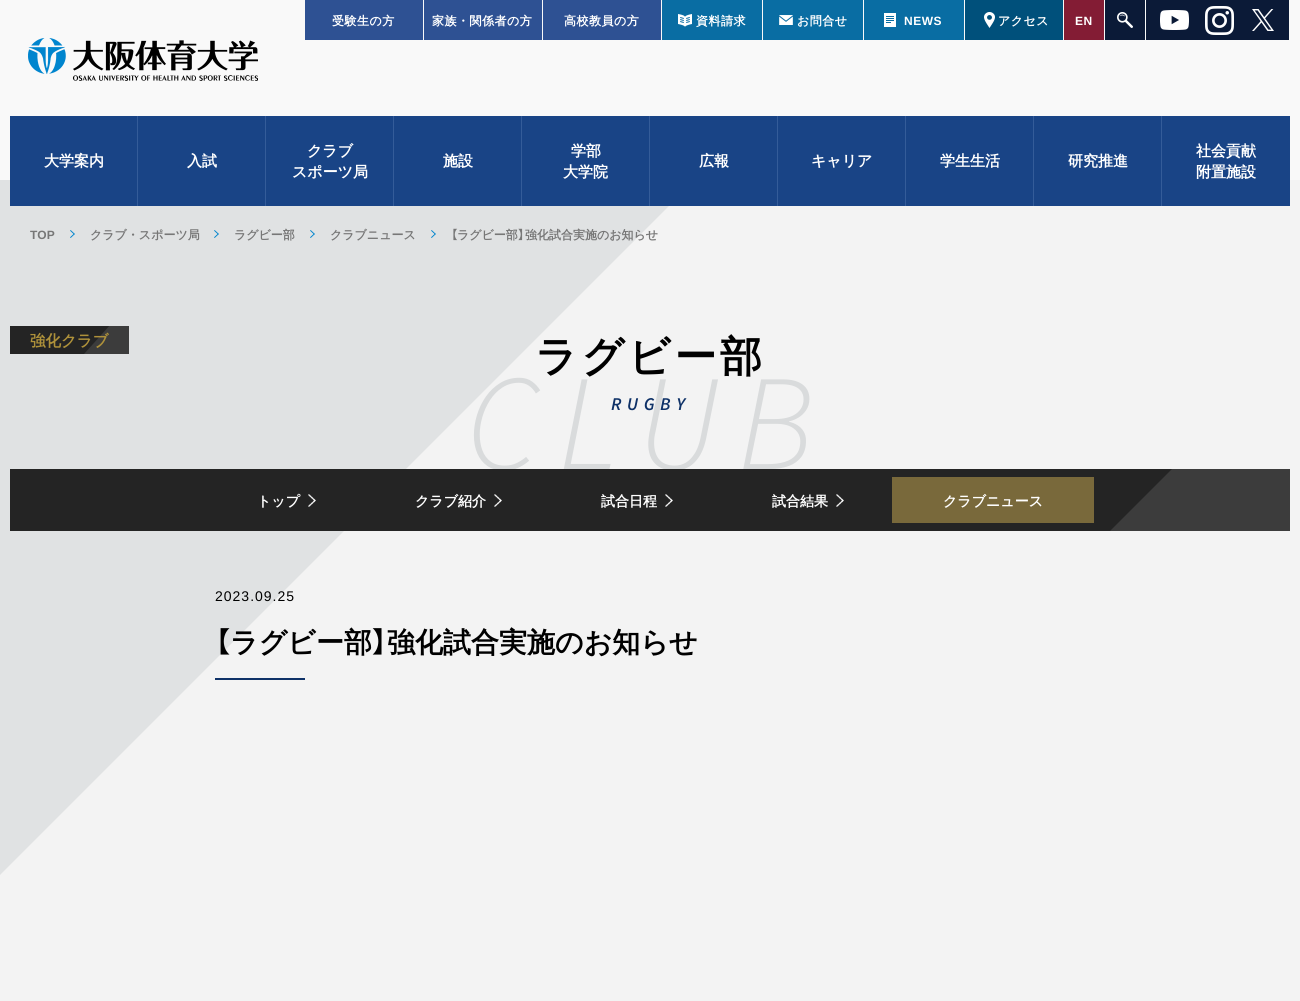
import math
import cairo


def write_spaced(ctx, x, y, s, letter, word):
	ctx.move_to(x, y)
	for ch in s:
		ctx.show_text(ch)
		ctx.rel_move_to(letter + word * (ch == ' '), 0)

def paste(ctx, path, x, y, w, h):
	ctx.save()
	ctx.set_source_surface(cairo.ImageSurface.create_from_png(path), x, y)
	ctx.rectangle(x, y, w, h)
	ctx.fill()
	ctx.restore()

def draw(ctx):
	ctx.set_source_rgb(0.953, 0.953, 0.953)
	ctx.paint()
	ctx.set_source_rgb(0.973, 0.973, 0.973)
	ctx.rectangle(0, 0, 1300, 180)
	ctx.fill()
	ctx.set_source_rgb(0.18, 0.318, 0.576)
	ctx.rectangle(305, 0, 118, 40)
	ctx.fill()
	ctx.select_font_face('WenQuanYi Zen Hei', cairo.FONT_SLANT_NORMAL, cairo.FONT_WEIGHT_BOLD)
	ctx.set_font_size(12)
	ctx.set_source_rgb(1, 1, 1)
	write_spaced(ctx, 332, 25, '受験生の方', 0.5, 0)
	ctx.set_source_rgb(0.18, 0.318, 0.576)
	ctx.rectangle(424, 0, 118, 40)
	ctx.fill()
	ctx.set_source_rgb(1, 1, 1)
	write_spaced(ctx, 432, 25, '家族・関係者の方', 0.5, 0)
	ctx.set_source_rgb(0.18, 0.318, 0.576)
	ctx.rectangle(543, 0, 118, 40)
	ctx.fill()
	ctx.set_source_rgb(1, 1, 1)
	write_spaced(ctx, 564, 25, '高校教員の方', 0.5, 0)
	ctx.set_source_rgb(0.039, 0.427, 0.639)
	ctx.rectangle(662, 0, 100, 40)
	ctx.fill()
	paste(ctx, 'media/1.png', 678, 14, 14, 13)
	ctx.set_source_rgb(1, 1, 1)
	write_spaced(ctx, 696, 25, '資料請求', 0.5, 0)
	ctx.set_source_rgb(0.039, 0.427, 0.639)
	ctx.rectangle(763, 0, 100, 40)
	ctx.fill()
	paste(ctx, 'media/2.png', 779, 15, 14, 10)
	ctx.set_source_rgb(1, 1, 1)
	write_spaced(ctx, 797, 25, 'お問合せ', 0.5, 0)
	ctx.set_source_rgb(0.039, 0.427, 0.639)
	ctx.rectangle(864, 0, 100, 40)
	ctx.fill()
	paste(ctx, 'media/3.png', 884, 13, 12, 14)
	ctx.select_font_face('Liberation Sans', cairo.FONT_SLANT_NORMAL, cairo.FONT_WEIGHT_BOLD)
	ctx.set_source_rgb(1, 1, 1)
	write_spaced(ctx, 904, 25, 'NEWS', 0.5, 0)
	ctx.set_source_rgb(0, 0.314, 0.482)
	ctx.rectangle(965, 0, 98, 40)
	ctx.fill()
	paste(ctx, 'media/4.png', 984, 12, 11, 16)
	ctx.select_font_face('WenQuanYi Zen Hei', cairo.FONT_SLANT_NORMAL, cairo.FONT_WEIGHT_BOLD)
	ctx.set_source_rgb(1, 1, 1)
	write_spaced(ctx, 998, 25, 'アクセス', 0.5, 0)
	ctx.set_source_rgb(0.514, 0.11, 0.204)
	ctx.rectangle(1064, 0, 40, 40)
	ctx.fill()
	ctx.select_font_face('Liberation Sans', cairo.FONT_SLANT_NORMAL, cairo.FONT_WEIGHT_BOLD)
	ctx.set_source_rgb(1, 1, 1)
	write_spaced(ctx, 1075, 25, 'EN', 0.5, 0)
	ctx.set_source_rgb(0.043, 0.102, 0.216)
	ctx.rectangle(1105, 0, 40, 40)
	ctx.fill()
	paste(ctx, 'media/5.png', 1117, 12, 16, 16)
	ctx.rectangle(1146, 0, 143, 40)
	ctx.fill()
	paste(ctx, 'media/6.png', 1160, 10, 29, 20)
	paste(ctx, 'media/7.png', 1205, 6, 29, 29)
	paste(ctx, 'media/8.png', 1252, 9, 22, 22)
	paste(ctx, 'media/9.png', 28, 38, 230, 43)
	ctx.set_source_rgb(0.878, 0.886, 0.89)
	ctx.new_path()
	ctx.move_to(0, 875)
	ctx.line_to(0, 180)
	ctx.line_to(695, 180)
	ctx.close_path()
	ctx.fill()
	ctx.set_source_rgb(0.098, 0.267, 0.525)
	ctx.rectangle(10, 116, 1280, 90)
	ctx.fill()
	ctx.set_source_rgb(0.204, 0.361, 0.6)
	ctx.rectangle(137, 116, 1, 90)
	ctx.fill()
	ctx.select_font_face('WenQuanYi Zen Hei', cairo.FONT_SLANT_NORMAL, cairo.FONT_WEIGHT_BOLD)
	ctx.set_font_size(15)
	ctx.set_source_rgb(1, 1, 1)
	ctx.move_to(44, 166)
	ctx.show_text('大学案内')
	ctx.set_source_rgb(0.204, 0.361, 0.6)
	ctx.rectangle(265, 116, 1, 90)
	ctx.fill()
	ctx.set_source_rgb(1, 1, 1)
	ctx.move_to(187, 166)
	ctx.show_text('入試')
	ctx.set_source_rgb(0.204, 0.361, 0.6)
	ctx.rectangle(393, 116, 1, 90)
	ctx.fill()
	ctx.set_source_rgb(1, 1, 1)
	ctx.move_to(307, 156)
	ctx.show_text('クラブ')
	ctx.move_to(292, 177)
	ctx.show_text('スポーツ局')
	ctx.set_source_rgb(0.204, 0.361, 0.6)
	ctx.rectangle(521, 116, 1, 90)
	ctx.fill()
	ctx.set_source_rgb(1, 1, 1)
	ctx.move_to(443, 166)
	ctx.show_text('施設')
	ctx.set_source_rgb(0.204, 0.361, 0.6)
	ctx.rectangle(649, 116, 1, 90)
	ctx.fill()
	ctx.set_source_rgb(1, 1, 1)
	ctx.move_to(571, 156)
	ctx.show_text('学部')
	ctx.move_to(563, 177)
	ctx.show_text('大学院')
	ctx.set_source_rgb(0.204, 0.361, 0.6)
	ctx.rectangle(777, 116, 1, 90)
	ctx.fill()
	ctx.set_source_rgb(1, 1, 1)
	ctx.move_to(699, 166)
	ctx.show_text('広報')
	ctx.set_source_rgb(0.204, 0.361, 0.6)
	ctx.rectangle(905, 116, 1, 90)
	ctx.fill()
	ctx.set_source_rgb(1, 1, 1)
	ctx.move_to(811, 166)
	ctx.show_text('キャリア')
	ctx.set_source_rgb(0.204, 0.361, 0.6)
	ctx.rectangle(1033, 116, 1, 90)
	ctx.fill()
	ctx.set_source_rgb(1, 1, 1)
	ctx.move_to(940, 166)
	ctx.show_text('学生生活')
	ctx.set_source_rgb(0.204, 0.361, 0.6)
	ctx.rectangle(1161, 116, 1, 90)
	ctx.fill()
	ctx.set_source_rgb(1, 1, 1)
	for x, y, s in [
		(1068, 166, '研究推進'),
		(1196, 156, '社会貢献'),
		(1196, 177, '附置施設'),
	]:
		ctx.move_to(x, y)
		ctx.show_text(s)
	paste(ctx, 'media/10.png', 70, 230, 5, 8)
	ctx.select_font_face('Liberation Sans', cairo.FONT_SLANT_NORMAL, cairo.FONT_WEIGHT_BOLD)
	ctx.set_font_size(12)
	ctx.set_source_rgb(0.467, 0.467, 0.467)
	ctx.move_to(30, 239)
	ctx.show_text('TOP')
	paste(ctx, 'media/10.png', 214, 230, 5, 8)
	ctx.select_font_face('WenQuanYi Zen Hei', cairo.FONT_SLANT_NORMAL, cairo.FONT_WEIGHT_BOLD)
	ctx.move_to(90, 239)
	ctx.show_text('クラブ・スポーツ局')
	paste(ctx, 'media/10.png', 310, 230, 5, 8)
	ctx.move_to(234, 239)
	ctx.show_text('ラグビー部')
	paste(ctx, 'media/10.png', 431, 230, 5, 8)
	ctx.move_to(330, 239)
	ctx.show_text('クラブニュース')
	ctx.select_font_face('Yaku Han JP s', cairo.FONT_SLANT_NORMAL, cairo.FONT_WEIGHT_BOLD)
	ctx.move_to(451, 239)
	ctx.show_text('【')
	ctx.select_font_face('WenQuanYi Zen Hei', cairo.FONT_SLANT_NORMAL, cairo.FONT_WEIGHT_BOLD)
	ctx.move_to(457, 239)
	ctx.show_text('ラグビー部')
	ctx.select_font_face('Yaku Han JP s', cairo.FONT_SLANT_NORMAL, cairo.FONT_WEIGHT_BOLD)
	ctx.move_to(518, 239)
	ctx.show_text('】')
	ctx.select_font_face('WenQuanYi Zen Hei', cairo.FONT_SLANT_NORMAL, cairo.FONT_WEIGHT_BOLD)
	ctx.move_to(525, 239)
	ctx.show_text('強化試合実施のお知らせ')
	ctx.set_source_rgb(0.141, 0.141, 0.141)
	ctx.rectangle(10, 326, 100, 28)
	ctx.fill()
	ctx.save()
	ctx.rectangle(10, 326, 119, 28)
	ctx.clip()
	ctx.set_source_rgb(0.235, 0.235, 0.235)
	ctx.new_path()
	ctx.move_to(129, 304)
	ctx.line_to(129, 354)
	ctx.line_to(84, 354)
	ctx.close_path()
	ctx.fill()
	ctx.restore()
	ctx.set_font_size(15.5)
	ctx.set_source_rgb(0.682, 0.569, 0.227)
	ctx.move_to(30, 346)
	ctx.show_text('強化クラブ')
	ctx.set_font_size(42)
	ctx.set_source_rgb(0, 0, 0)
	write_spaced(ctx, 535, 371, 'ラグビー部', 3.5, 0)
	ctx.select_font_face('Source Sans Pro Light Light', cairo.FONT_SLANT_ITALIC)
	ctx.set_font_size(136)
	ctx.set_source_rgb(0.851, 0.859, 0.863)
	write_spaced(ctx, 466, 469, 'CLUB', 19, 0)
	ctx.select_font_face('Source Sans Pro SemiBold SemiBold', cairo.FONT_SLANT_ITALIC)
	ctx.set_font_size(18)
	ctx.set_source_rgb(0.055, 0.192, 0.404)
	write_spaced(ctx, 611, 410, 'RUGBY', 5.5, 0)
	ctx.set_source_rgb(0.141, 0.141, 0.141)
	ctx.rectangle(10, 469, 1162, 62)
	ctx.fill()
	ctx.select_font_face('WenQuanYi Zen Hei', cairo.FONT_SLANT_NORMAL, cairo.FONT_WEIGHT_BOLD)
	ctx.set_font_size(14)
	ctx.set_source_rgb(1, 1, 1)
	ctx.move_to(257, 506)
	ctx.show_text('トップ')
	paste(ctx, 'media/11.png', 308, 494, 8, 13)
	ctx.move_to(415, 506)
	ctx.show_text('クラブ紹介')
	paste(ctx, 'media/11.png', 494, 494, 8, 13)
	ctx.move_to(601, 506)
	ctx.show_text('試合日程')
	paste(ctx, 'media/11.png', 665, 494, 8, 13)
	ctx.move_to(772, 506)
	ctx.show_text('試合結果')
	paste(ctx, 'media/11.png', 836, 494, 8, 13)
	ctx.set_source_rgb(0.475, 0.412, 0.231)
	ctx.rectangle(892, 477, 202, 46)
	ctx.fill()
	ctx.set_source_rgb(1, 1, 1)
	ctx.move_to(943, 506)
	ctx.show_text('クラブニュース')
	ctx.save()
	ctx.rectangle(10, 469, 1280, 62)
	ctx.clip()
	ctx.set_source_rgb(0.235, 0.235, 0.235)
	ctx.new_path()
	ctx.move_to(1290, 531)
	ctx.line_to(1110, 531)
	ctx.line_to(1290, 351)
	ctx.close_path()
	ctx.fill()
	ctx.restore()
	ctx.select_font_face('Liberation Sans')
	ctx.set_source_rgb(0, 0, 0)
	write_spaced(ctx, 215, 601, '2023.09.25', 1, 0)
	ctx.select_font_face('Yaku Han JP s', cairo.FONT_SLANT_NORMAL, cairo.FONT_WEIGHT_BOLD)
	ctx.set_font_size(28)
	ctx.move_to(215, 652)
	ctx.show_text('【')
	ctx.select_font_face('WenQuanYi Zen Hei', cairo.FONT_SLANT_NORMAL, cairo.FONT_WEIGHT_BOLD)
	ctx.move_to(230, 652)
	ctx.show_text('ラグビー部')
	ctx.select_font_face('Yaku Han JP s', cairo.FONT_SLANT_NORMAL, cairo.FONT_WEIGHT_BOLD)
	ctx.move_to(372, 652)
	ctx.show_text('】')
	ctx.select_font_face('WenQuanYi Zen Hei', cairo.FONT_SLANT_NORMAL, cairo.FONT_WEIGHT_BOLD)
	ctx.move_to(387, 652)
	ctx.show_text('強化試合実施のお知らせ')
	ctx.set_source_rgb(0.055, 0.192, 0.404)
	ctx.rectangle(215, 678, 90, 2)
	ctx.fill()


surface = cairo.ImageSurface(cairo.FORMAT_RGB24, 1300, 1001)
ctx = cairo.Context(surface)
options = cairo.FontOptions()
options.set_hint_metrics(cairo.HINT_METRICS_OFF)
options.set_hint_style(cairo.HINT_STYLE_NONE)
ctx.set_font_options(options)
ctx.set_miter_limit(4)
draw(ctx)
surface.write_to_png('image.png')
